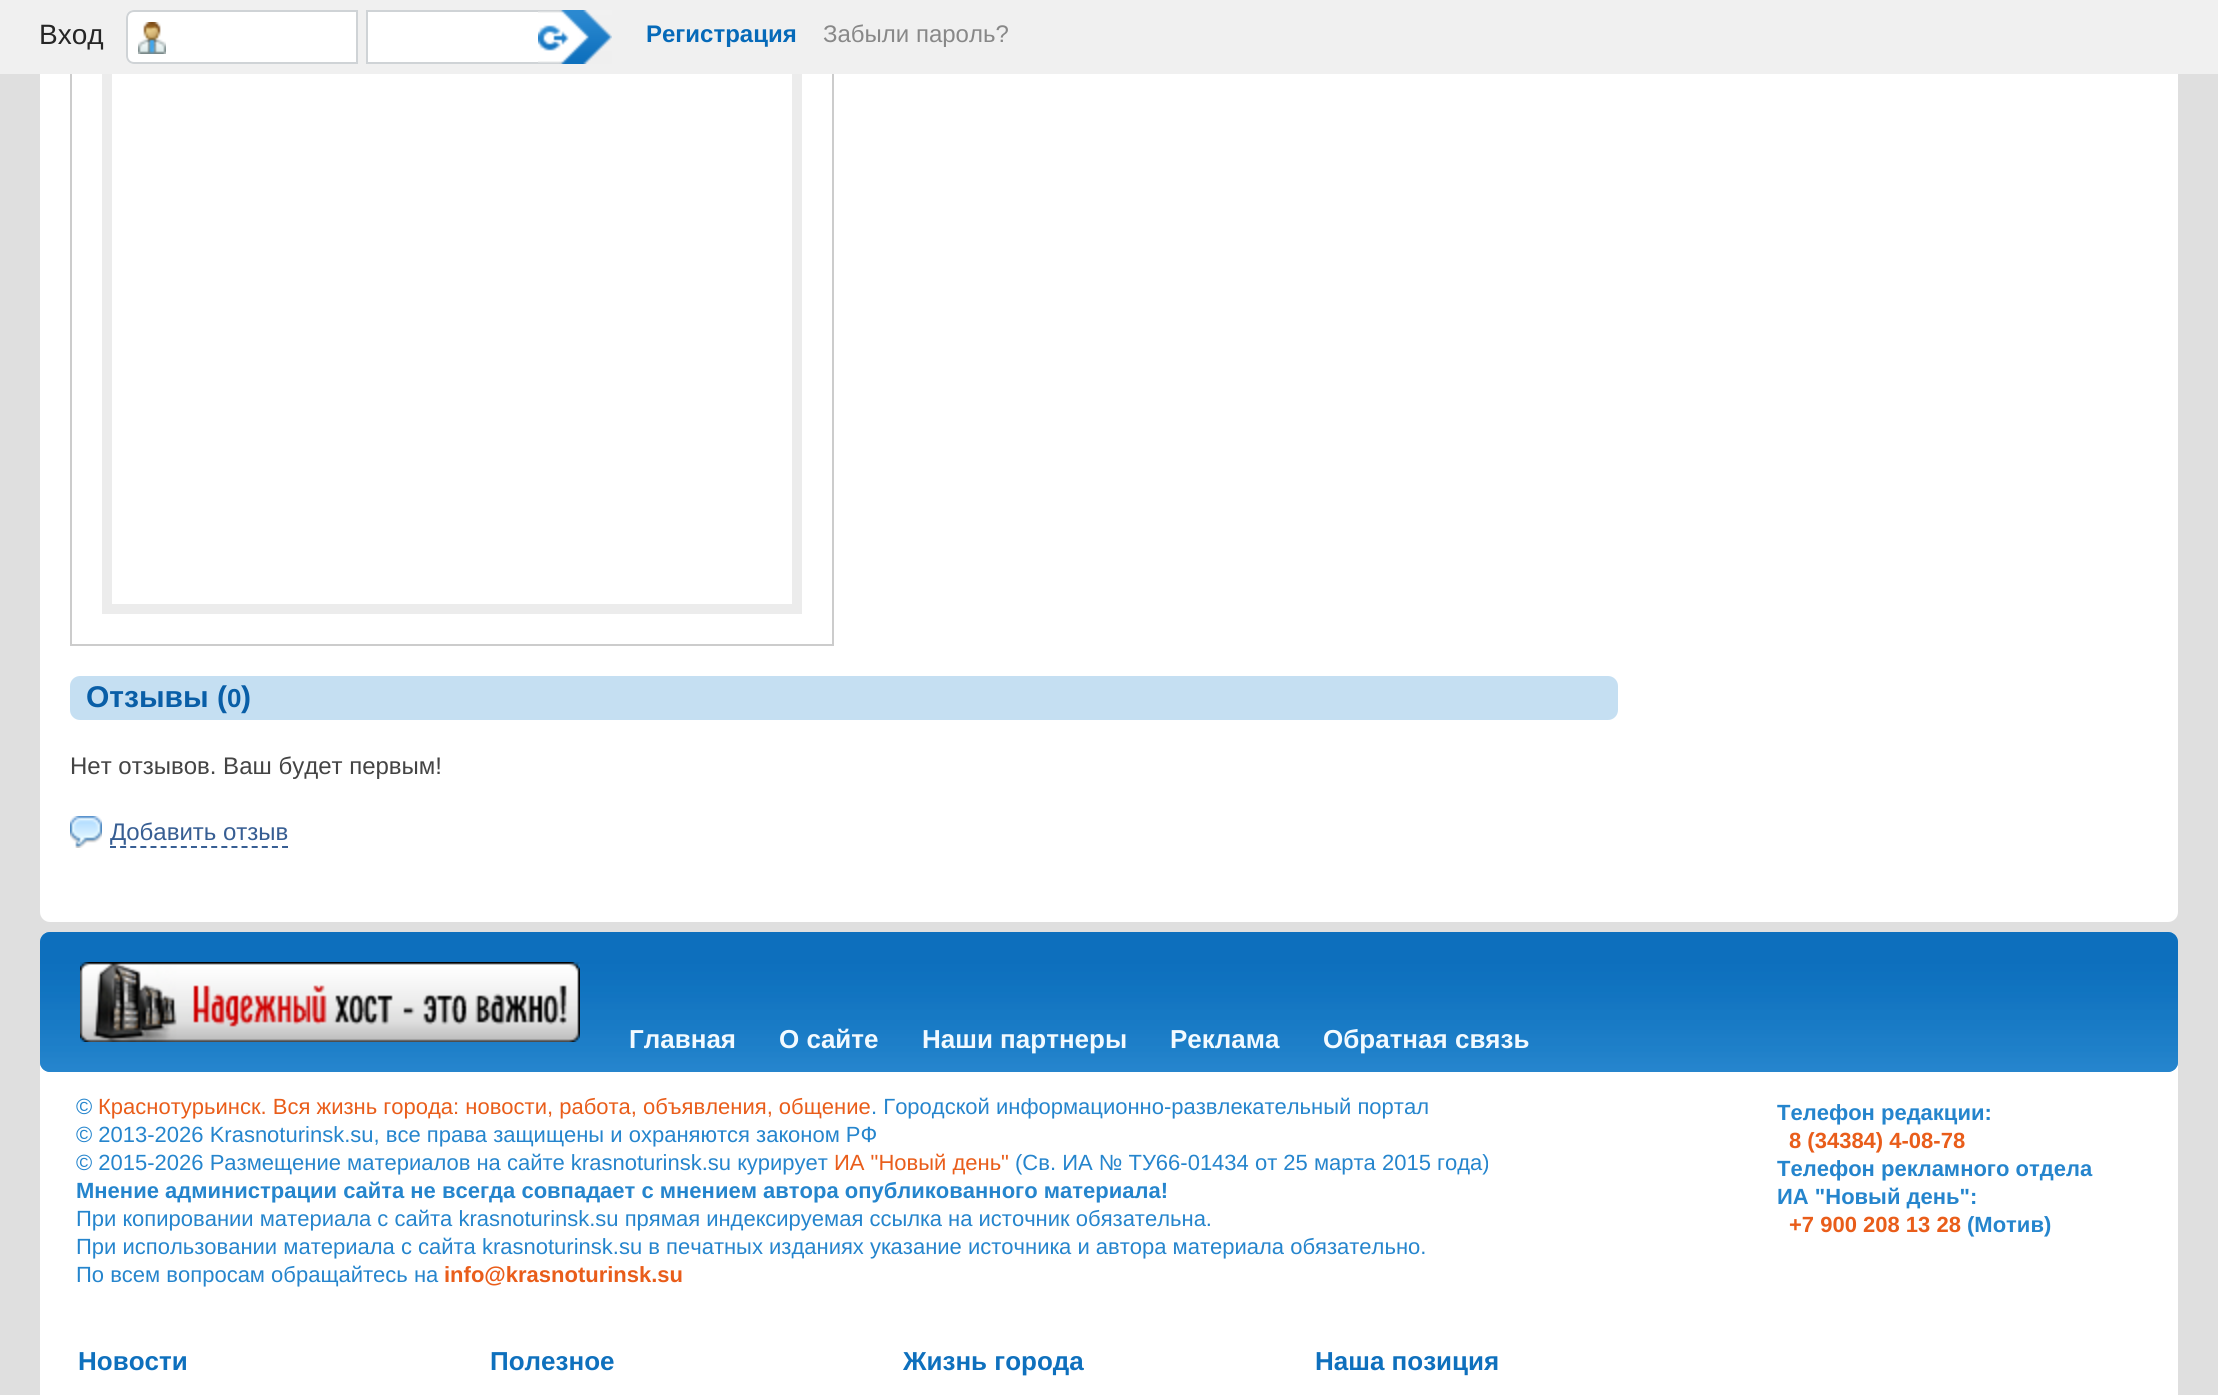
import math
import cairo


def round_path(ctx, x, y, w, h, r):
	ctx.new_sub_path()
	for i, (u, v) in enumerate([(x + w - r, y + h - r), (x + r, y + h - r), (x + r, y + r), (x + w - r, y + r)]):
		ctx.arc(u, v, r, i * math.pi / 2, (i + 1) * math.pi / 2)
	ctx.close_path()

def paste(ctx, path, x, y, w, h):
	ctx.save()
	ctx.set_source_surface(cairo.ImageSurface.create_from_png(path), x, y)
	ctx.rectangle(x, y, w, h)
	ctx.fill()
	ctx.restore()

def draw(ctx):
	ctx.set_source_rgb(0.875, 0.875, 0.875)
	ctx.paint()
	ctx.set_source_rgb(1, 1, 1)
	round_path(ctx, 40, -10, 2138, 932, 10)
	ctx.fill()
	ctx.rectangle(107, 39, 690, 570)
	ctx.set_source_rgb(0.925, 0.925, 0.925)
	ctx.set_line_width(10)
	ctx.stroke()
	ctx.set_source_rgb(0.941, 0.941, 0.941)
	ctx.rectangle(0, 0, 2218, 74)
	ctx.fill()
	ctx.select_font_face('Liberation Sans')
	ctx.set_font_size(28)
	ctx.set_source_rgb(0.149, 0.149, 0.149)
	ctx.move_to(39, 44)
	ctx.show_text('Вход')
	ctx.set_source_rgb(1, 1, 1)
	ctx.new_path()
	ctx.move_to(134, 10)
	ctx.line_to(358, 10)
	ctx.line_to(358, 64)
	ctx.line_to(134, 64)
	ctx.curve_to(129.5, 64, 126, 60.5, 126, 56)
	ctx.line_to(126, 18)
	ctx.curve_to(126, 13.5, 129.5, 10, 134, 10)
	ctx.close_path()
	ctx.fill()
	paste(ctx, 'media/1.png', 138, 22, 28, 32)
	ctx.new_path()
	ctx.move_to(134, 11)
	ctx.line_to(357, 11)
	ctx.line_to(357, 63)
	ctx.line_to(134, 63)
	ctx.curve_to(130, 63, 127, 60, 127, 56)
	ctx.line_to(127, 18)
	ctx.curve_to(127, 14, 130, 11, 134, 11)
	ctx.close_path()
	ctx.set_source_rgb(0.812, 0.827, 0.839)
	ctx.set_line_width(2)
	ctx.stroke()
	ctx.set_source_rgb(1, 1, 1)
	ctx.rectangle(368, 12, 170, 50)
	ctx.fill()
	ctx.set_source_rgb(0.812, 0.827, 0.839)
	ctx.rectangle(366, 10, 172, 2)
	ctx.rectangle(366, 62, 172, 2)
	ctx.rectangle(366, 10, 2, 54)
	ctx.fill()
	paste(ctx, 'media/2.png', 538, 10, 74, 54)
	ctx.select_font_face('Liberation Sans', cairo.FONT_SLANT_NORMAL, cairo.FONT_WEIGHT_BOLD)
	ctx.set_font_size(24)
	ctx.set_source_rgb(0.027, 0.416, 0.725)
	ctx.move_to(646, 42)
	ctx.show_text('Регистрация')
	ctx.select_font_face('Liberation Sans')
	ctx.set_source_rgb(0.533, 0.533, 0.533)
	ctx.move_to(823, 42)
	ctx.show_text('Забыли пароль?')
	ctx.set_source_rgb(0.8, 0.8, 0.8)
	ctx.rectangle(832, 74, 2, 572)
	ctx.rectangle(70, 644, 764, 2)
	ctx.rectangle(70, 74, 2, 572)
	ctx.fill()
	ctx.set_source_rgb(0.773, 0.875, 0.949)
	round_path(ctx, 70, 676, 1548, 44, 10)
	ctx.fill()
	ctx.select_font_face('Liberation Sans', cairo.FONT_SLANT_NORMAL, cairo.FONT_WEIGHT_BOLD)
	ctx.set_font_size(30)
	ctx.set_source_rgb(0.039, 0.369, 0.655)
	ctx.move_to(86, 707)
	ctx.show_text('Отзывы (')
	ctx.set_font_size(26)
	ctx.move_to(227, 707)
	ctx.show_text('0')
	ctx.set_font_size(30)
	ctx.move_to(241, 707)
	ctx.show_text(')')
	ctx.select_font_face('Liberation Sans')
	ctx.set_font_size(24)
	ctx.set_source_rgb(0.267, 0.267, 0.267)
	ctx.move_to(70, 774)
	ctx.show_text('Нет отзывов. Ваш будет первым!')
	paste(ctx, 'media/3.png', 70, 816, 32, 32)
	ctx.set_source_rgb(0.216, 0.369, 0.576)
	ctx.move_to(110, 840)
	ctx.show_text('Добавить отзыв')
	ctx.new_path()
	ctx.move_to(110, 847)
	ctx.line_to(288, 847)
	ctx.set_dash([6, 4.12])
	ctx.stroke()
	ctx.set_source_rgb(1, 1, 1)
	round_path(ctx, 40, 932, 2138, 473, 10)
	ctx.fill()
	ctx.set_source_rgb(0.125, 0.498, 0.788)
	round_path(ctx, 40, 932, 2138, 140, 10)
	ctx.fill()
	paste(ctx, 'media/4.png', 40, 932, 2138, 140)
	paste(ctx, 'media/5.png', 80, 962, 500, 80)
	ctx.select_font_face('Liberation Sans', cairo.FONT_SLANT_NORMAL, cairo.FONT_WEIGHT_BOLD)
	ctx.set_font_size(26)
	ctx.set_source_rgb(0.949, 0.98, 1)
	for x, y, s in [
		(629, 1048, 'Главная'),
		(779, 1048, 'О сайте'),
		(922, 1048, 'Наши партнеры'),
		(1170, 1048, 'Реклама'),
		(1323, 1048, 'Обратная связь'),
	]:
		ctx.move_to(x, y)
		ctx.show_text(s)
	ctx.select_font_face('Liberation Sans')
	ctx.set_font_size(22)
	ctx.set_source_rgb(0.145, 0.522, 0.804)
	ctx.move_to(76, 1114)
	ctx.show_text('©')
	ctx.set_source_rgb(0.914, 0.365, 0.102)
	ctx.move_to(98, 1114)
	ctx.show_text('Краснотурьинск. Вся жизнь города: новости, работа, объявления, общение')
	ctx.set_source_rgb(0.145, 0.522, 0.804)
	for x, y, s in [
		(871, 1114, '. Городской информационно-развлекательный портал'),
		(76, 1142, '© 2013-2026 Krasnoturinsk.su, все права защищены и охраняются законом РФ'),
		(76, 1170, '© 2015-2026 Размещение материалов на сайте krasnoturinsk.su курирует'),
	]:
		ctx.move_to(x, y)
		ctx.show_text(s)
	ctx.set_source_rgb(0.914, 0.365, 0.102)
	ctx.move_to(834, 1170)
	ctx.show_text('ИА "Новый день"')
	ctx.set_source_rgb(0.145, 0.522, 0.804)
	ctx.move_to(1015, 1170)
	ctx.show_text('(Св. ИА № ТУ66-01434 от 25 марта 2015 года)')
	ctx.select_font_face('Liberation Sans', cairo.FONT_SLANT_NORMAL, cairo.FONT_WEIGHT_BOLD)
	ctx.move_to(76, 1198)
	ctx.show_text('Мнение администрации сайта не всегда совпадает с мнением автора опубликованного материала!')
	ctx.select_font_face('Liberation Sans')
	for x, y, s in [
		(76, 1226, 'При копировании материала с сайта krasnoturinsk.su прямая индексируемая ссылка на источник обязательна.'),
		(76, 1254, 'При использовании материала с сайта krasnoturinsk.su в печатных изданиях указание источника и автора материала обязательно.'),
		(76, 1282, 'По всем вопросам обращайтесь на'),
	]:
		ctx.move_to(x, y)
		ctx.show_text(s)
	ctx.select_font_face('Liberation Sans', cairo.FONT_SLANT_NORMAL, cairo.FONT_WEIGHT_BOLD)
	ctx.set_source_rgb(0.914, 0.365, 0.102)
	ctx.move_to(444, 1282)
	ctx.show_text('info@krasnoturinsk.su')
	ctx.set_source_rgb(0.145, 0.522, 0.804)
	ctx.move_to(1777, 1120)
	ctx.show_text('Телефон редакции:')
	ctx.set_source_rgb(0.914, 0.365, 0.102)
	ctx.move_to(1789, 1148)
	ctx.show_text('8 (34384) 4-08-78')
	ctx.set_source_rgb(0.145, 0.522, 0.804)
	ctx.move_to(1777, 1176)
	ctx.show_text('Телефон рекламного отдела')
	ctx.move_to(1777, 1204)
	ctx.show_text('ИА "Новый день":')
	ctx.set_source_rgb(0.914, 0.365, 0.102)
	ctx.move_to(1789, 1232)
	ctx.show_text('+7 900 208 13 28')
	ctx.set_source_rgb(0.145, 0.522, 0.804)
	ctx.move_to(1967, 1232)
	ctx.show_text('(Мотив)')
	ctx.set_font_size(26)
	ctx.set_source_rgb(0.055, 0.439, 0.741)
	for x, y, s in [
		(78, 1370, 'Новости'),
		(490, 1370, 'Полезное'),
		(903, 1370, 'Жизнь города'),
		(1315, 1370, 'Наша позиция'),
	]:
		ctx.move_to(x, y)
		ctx.show_text(s)


surface = cairo.ImageSurface(cairo.FORMAT_RGB24, 2218, 1395)
ctx = cairo.Context(surface)
options = cairo.FontOptions()
options.set_hint_metrics(cairo.HINT_METRICS_OFF)
options.set_hint_style(cairo.HINT_STYLE_NONE)
ctx.set_font_options(options)
ctx.set_miter_limit(4)
draw(ctx)
surface.write_to_png('image.png')
